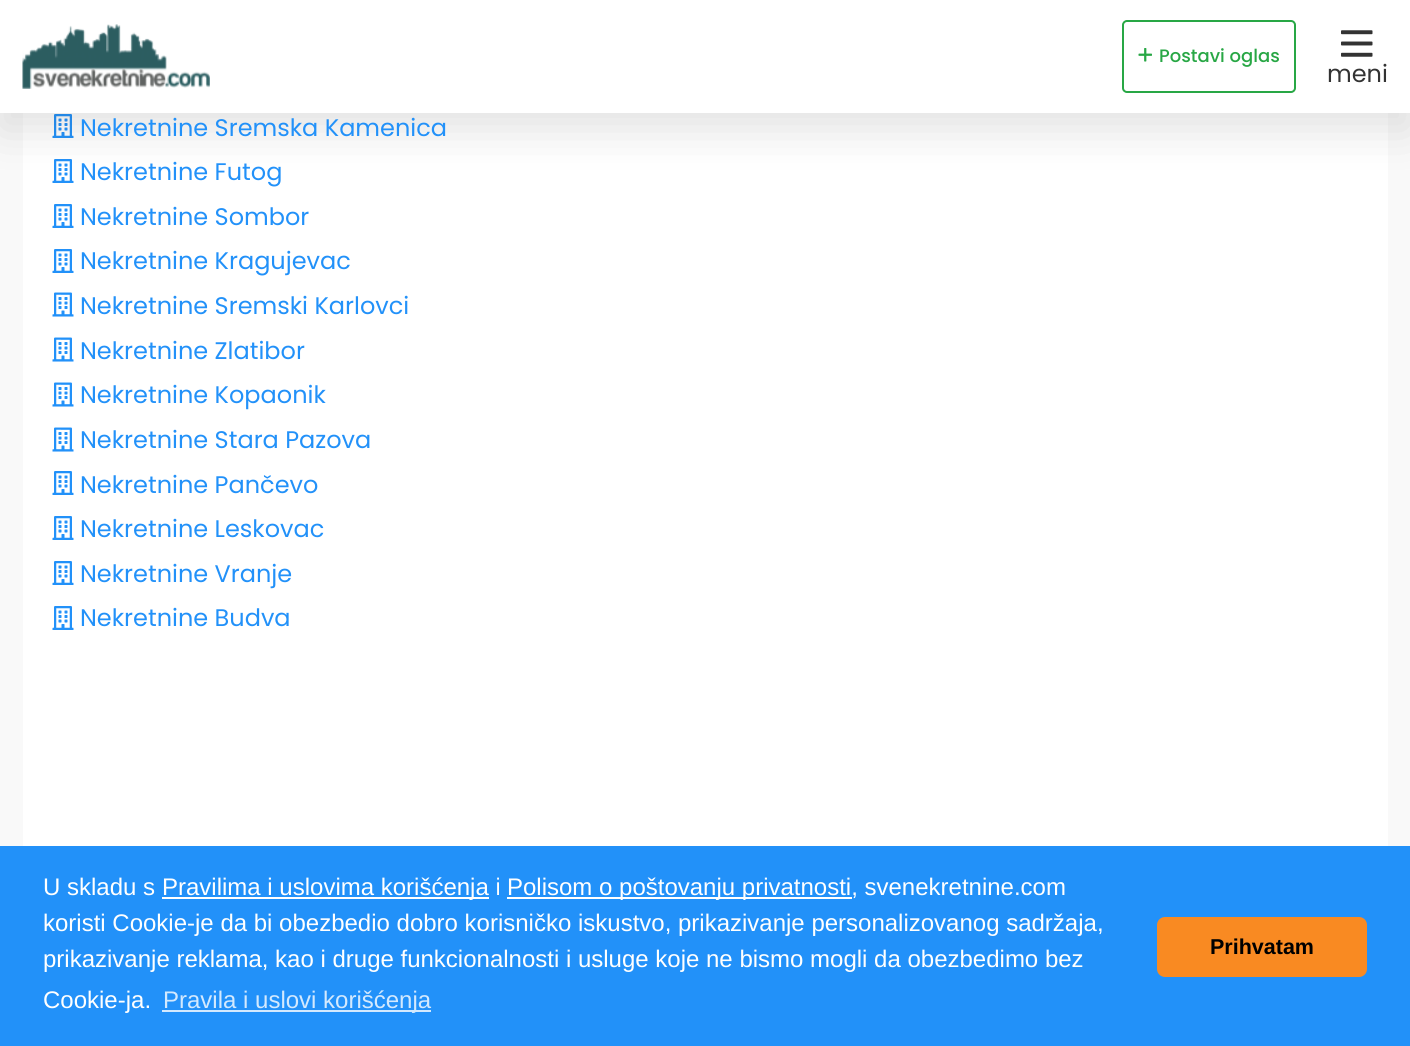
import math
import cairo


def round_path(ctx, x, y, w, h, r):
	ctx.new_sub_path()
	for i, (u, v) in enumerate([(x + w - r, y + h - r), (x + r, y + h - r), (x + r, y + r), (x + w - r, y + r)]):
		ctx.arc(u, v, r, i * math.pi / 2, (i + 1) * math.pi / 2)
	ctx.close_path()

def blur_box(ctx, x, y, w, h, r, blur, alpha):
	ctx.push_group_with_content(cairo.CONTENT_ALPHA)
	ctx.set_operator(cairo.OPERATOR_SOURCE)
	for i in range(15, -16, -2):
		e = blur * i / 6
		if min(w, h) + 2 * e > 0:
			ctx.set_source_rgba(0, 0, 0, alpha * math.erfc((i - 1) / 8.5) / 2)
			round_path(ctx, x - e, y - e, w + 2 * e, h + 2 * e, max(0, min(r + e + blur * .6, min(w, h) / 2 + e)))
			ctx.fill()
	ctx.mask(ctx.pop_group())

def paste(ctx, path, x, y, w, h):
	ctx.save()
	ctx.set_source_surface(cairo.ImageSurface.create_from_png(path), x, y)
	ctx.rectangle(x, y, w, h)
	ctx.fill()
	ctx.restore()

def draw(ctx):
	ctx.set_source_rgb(0.973, 0.973, 0.973)
	ctx.paint()
	ctx.set_source_rgb(1, 1, 1)
	ctx.rectangle(23, 113, 1365, 733)
	ctx.fill()
	paste(ctx, 'media/4.png', 52, 114, 22, 24)
	paste(ctx, 'media/4.png', 52, 159, 22, 24)
	ctx.set_source_rgb(0.2, 0.2, 0.2)
	blur_box(ctx, 0, 17, 1410, 112, 0, 22.5, 0.15)
	ctx.set_source_rgb(1, 1, 1)
	ctx.rectangle(0, 0, 1410, 113)
	ctx.fill()
	paste(ctx, 'media/1.png', 22, 24, 188, 65)
	round_path(ctx, 1123, 21, 172, 71, 4)
	ctx.set_source_rgb(0.157, 0.655, 0.271)
	ctx.stroke()
	paste(ctx, 'media/2.png', 1138, 48, 14, 14)
	ctx.select_font_face('Poppins Medium')
	ctx.set_font_size(18)
	ctx.move_to(1159, 62)
	ctx.show_text('Postavi oglas')
	paste(ctx, 'media/3.png', 1341, 30, 32, 27)
	ctx.select_font_face('Poppins')
	ctx.set_font_size(24)
	ctx.set_source_rgb(0.2, 0.2, 0.2)
	ctx.move_to(1327, 82)
	ctx.show_text('meni')
	ctx.set_source_rgb(0.133, 0.569, 0.976)
	ctx.move_to(80, 136)
	ctx.show_text('Nekretnine Sremska Kamenica')
	ctx.move_to(80, 180)
	ctx.show_text('Nekretnine Futog')
	paste(ctx, 'media/4.png', 52, 204, 22, 24)
	ctx.move_to(80, 225)
	ctx.show_text('Nekretnine Sombor')
	paste(ctx, 'media/4.png', 52, 249, 22, 24)
	ctx.move_to(80, 269)
	ctx.show_text('Nekretnine Kragujevac')
	paste(ctx, 'media/5.png', 52, 292, 22, 25)
	ctx.move_to(80, 314)
	ctx.show_text('Nekretnine Sremski Karlovci')
	paste(ctx, 'media/5.png', 52, 337, 22, 25)
	ctx.move_to(80, 359)
	ctx.show_text('Nekretnine Zlatibor')
	paste(ctx, 'media/5.png', 52, 382, 22, 25)
	ctx.move_to(80, 403)
	ctx.show_text('Nekretnine Kopaonik')
	paste(ctx, 'media/5.png', 52, 427, 22, 25)
	ctx.move_to(80, 448)
	ctx.show_text('Nekretnine Stara Pazova')
	paste(ctx, 'media/4.png', 52, 471, 22, 24)
	ctx.move_to(80, 493)
	ctx.show_text('Nekretnine Pančevo')
	paste(ctx, 'media/4.png', 52, 516, 22, 24)
	ctx.move_to(80, 537)
	ctx.show_text('Nekretnine Leskovac')
	paste(ctx, 'media/4.png', 52, 561, 22, 24)
	ctx.move_to(80, 582)
	ctx.show_text('Nekretnine Vranje')
	paste(ctx, 'media/4.png', 52, 606, 22, 24)
	ctx.move_to(80, 626)
	ctx.show_text('Nekretnine Budva')
	ctx.rectangle(0, 846, 1410, 200)
	ctx.fill()
	ctx.select_font_face('Liberation Sans')
	ctx.set_source_rgb(1, 1, 1)
	ctx.move_to(43, 895)
	ctx.show_text('U skladu s')
	ctx.rectangle(162, 897, 327, 2)
	ctx.fill()
	ctx.move_to(162, 895)
	ctx.show_text('Pravilima i uslovima korišćenja i')
	ctx.rectangle(507, 897, 345, 2)
	ctx.fill()
	for x, y, s in [
		(507, 895, 'Polisom o poštovanju privatnosti, svenekretnine.com'),
		(43, 931, 'koristi Cookie-je da bi obezbedio dobro korisničko iskustvo, prikazivanje personalizovanog sadržaja,'),
		(43, 967, 'prikazivanje reklama, kao i druge funkcionalnosti i usluge koje ne bismo mogli da obezbedimo bez'),
		(43, 1008, 'Cookie-ja.'),
	]:
		ctx.move_to(x, y)
		ctx.show_text(s)
	ctx.set_source_rgb(0.827, 0.914, 0.996)
	ctx.rectangle(162, 1010, 269, 2)
	ctx.fill()
	ctx.move_to(163, 1008)
	ctx.show_text('Pravila i uslovi korišćenja')
	ctx.set_source_rgb(0.976, 0.541, 0.133)
	round_path(ctx, 1157, 917, 210, 60, 8)
	ctx.fill()
	ctx.select_font_face('Liberation Sans', cairo.FONT_SLANT_NORMAL, cairo.FONT_WEIGHT_BOLD)
	ctx.set_font_size(21.5)
	ctx.set_source_rgb(0, 0, 0)
	ctx.move_to(1210, 954)
	ctx.show_text('Prihvatam')


surface = cairo.ImageSurface(cairo.FORMAT_RGB24, 1410, 1046)
ctx = cairo.Context(surface)
options = cairo.FontOptions()
options.set_hint_metrics(cairo.HINT_METRICS_OFF)
options.set_hint_style(cairo.HINT_STYLE_NONE)
ctx.set_font_options(options)
ctx.set_miter_limit(4)
draw(ctx)
surface.write_to_png('image.png')
